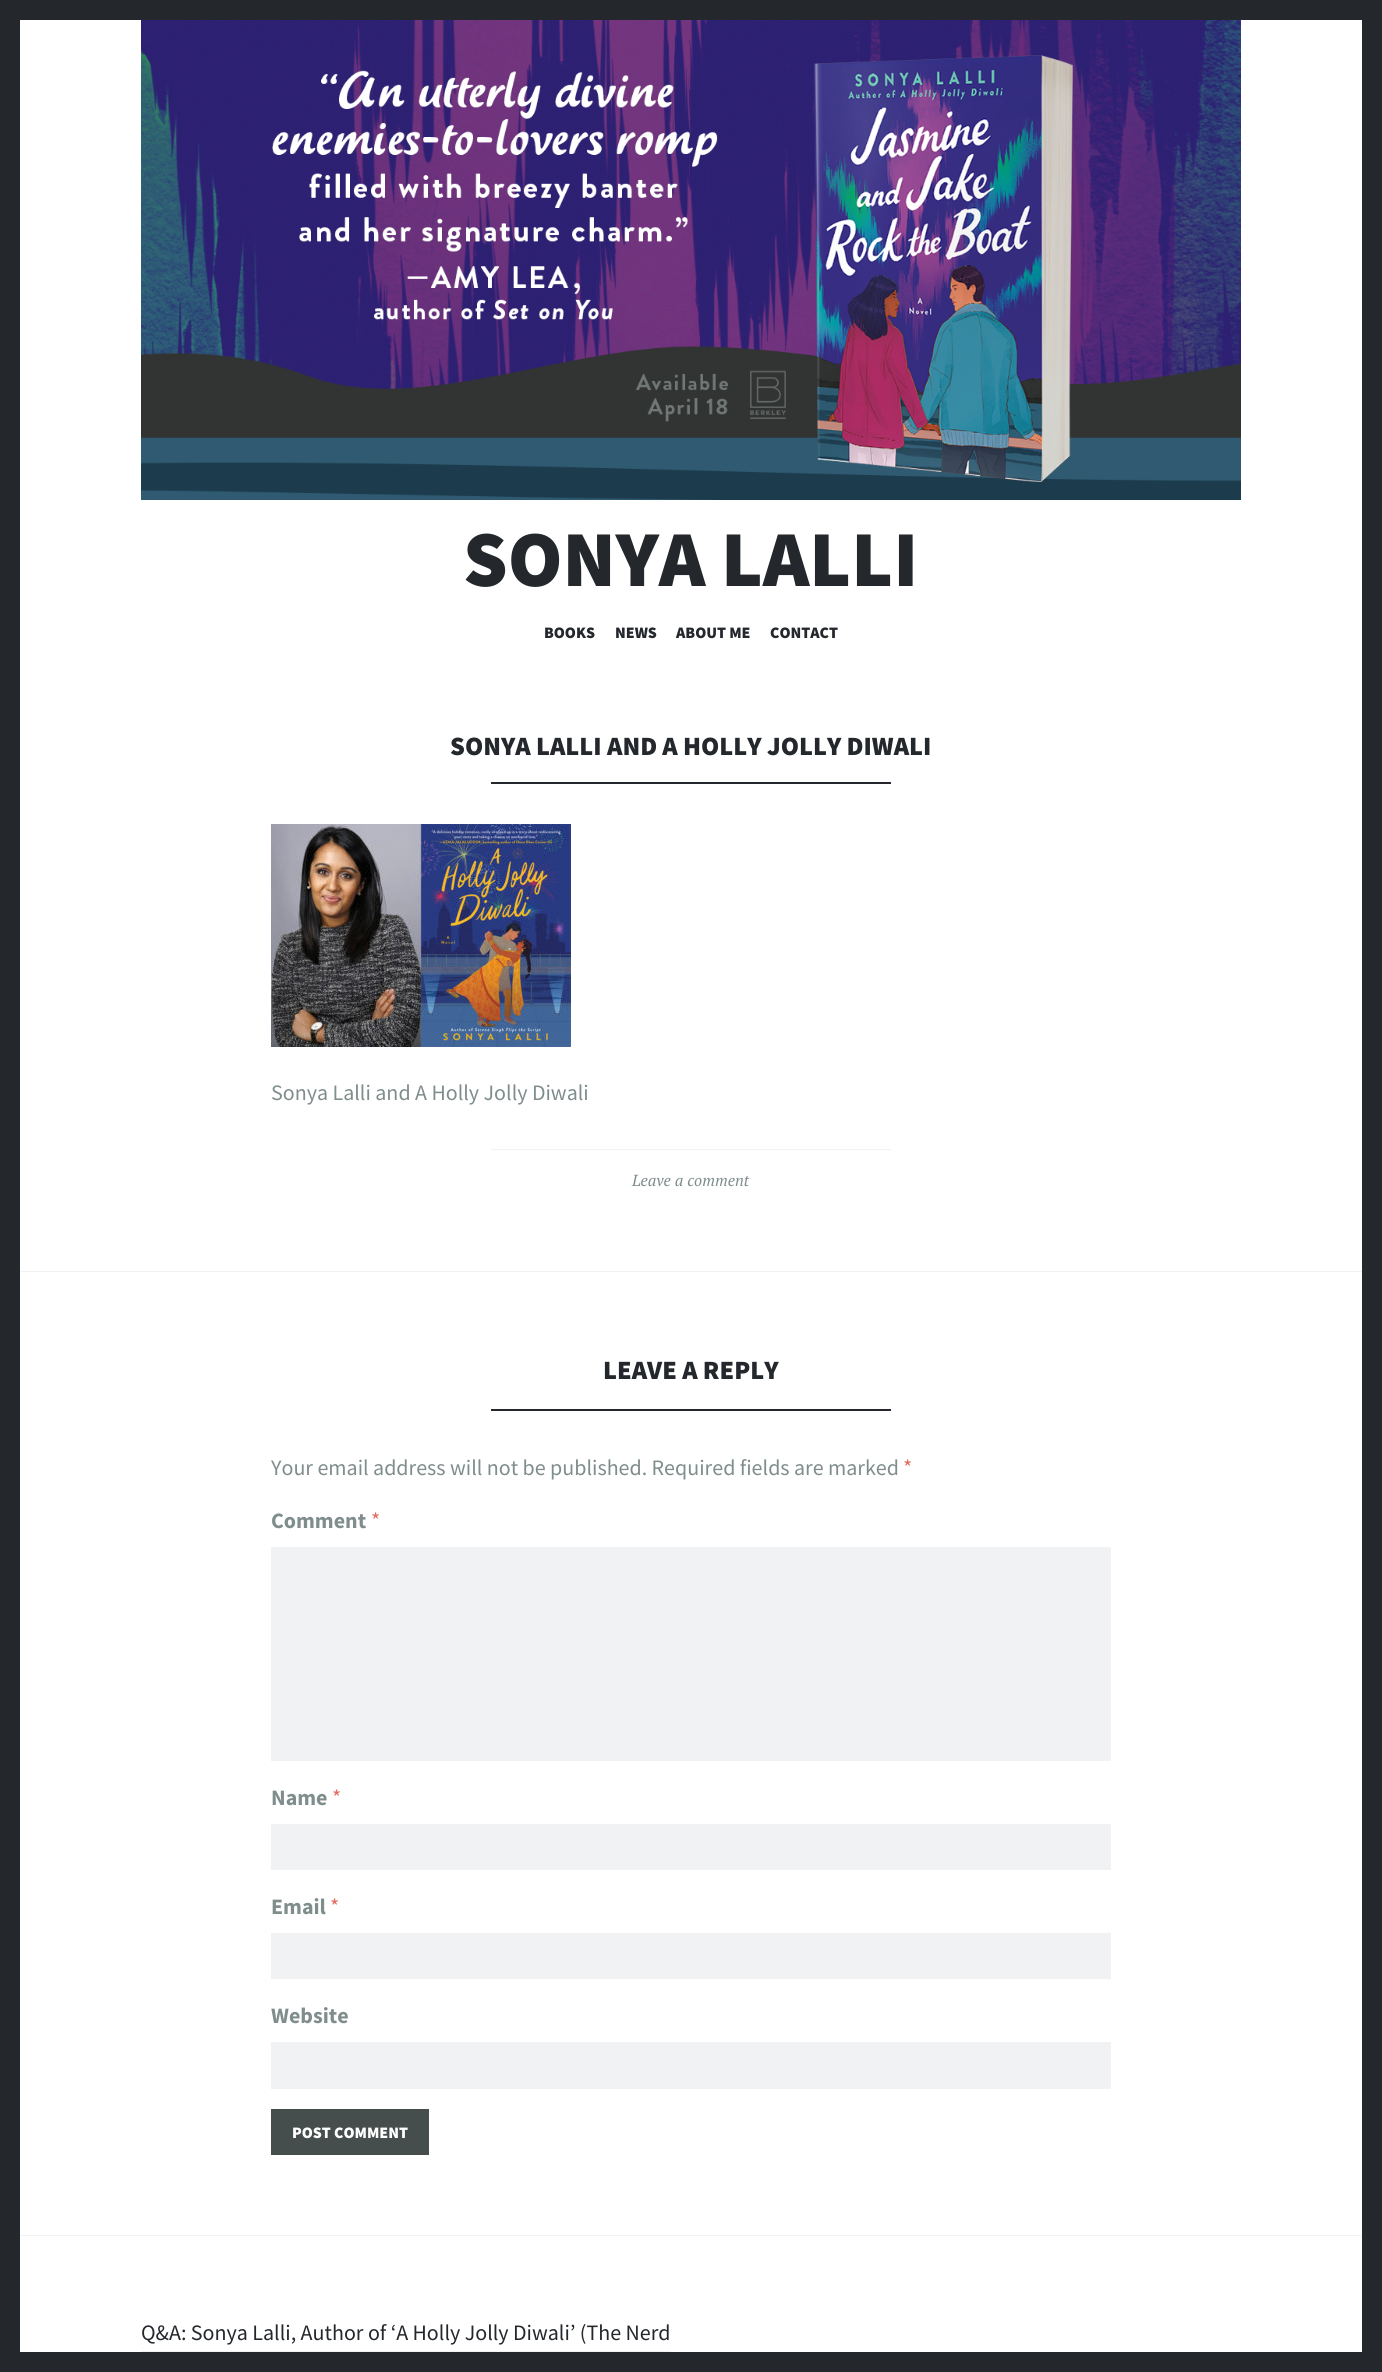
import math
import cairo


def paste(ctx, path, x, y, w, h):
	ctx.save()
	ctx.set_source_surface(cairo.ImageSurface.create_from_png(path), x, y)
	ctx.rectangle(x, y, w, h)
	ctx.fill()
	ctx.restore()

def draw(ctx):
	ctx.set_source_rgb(0.141, 0.157, 0.176)
	ctx.paint()
	ctx.set_source_rgb(1, 1, 1)
	ctx.rectangle(20, 20, 1342, 2332)
	ctx.fill()
	paste(ctx, 'media/1.png', 141, 20, 1100, 480)
	ctx.select_font_face('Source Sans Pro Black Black')
	ctx.set_font_size(79.25)
	ctx.set_source_rgb(0.141, 0.157, 0.176)
	ctx.move_to(463, 586)
	ctx.show_text('SONYA LALLI')
	ctx.set_font_size(16)
	for x, y, s in [
		(544, 638, 'BOOKS'),
		(615, 638, 'NEWS'),
		(676, 638, 'ABOUT ME'),
		(770, 638, 'CONTACT'),
	]:
		ctx.move_to(x, y)
		ctx.show_text(s)
	ctx.set_font_size(26.4)
	ctx.move_to(450, 755)
	ctx.show_text('SONYA LALLI AND A HOLLY JOLLY DIWALI')
	ctx.rectangle(491, 782, 400, 2)
	ctx.fill()
	paste(ctx, 'media/2.png', 271, 824, 300, 223)
	ctx.select_font_face('Source Sans Pro')
	ctx.set_font_size(22)
	ctx.set_source_rgb(0.498, 0.553, 0.549)
	ctx.move_to(271, 1100)
	ctx.show_text('Sonya Lalli and A Holly Jolly Diwali')
	ctx.set_source_rgb(0.945, 0.949, 0.953)
	ctx.rectangle(491, 1149, 400, 1)
	ctx.fill()
	ctx.select_font_face('PT Serif', cairo.FONT_SLANT_ITALIC)
	ctx.set_font_size(16)
	ctx.set_source_rgb(0.498, 0.553, 0.549)
	ctx.move_to(632, 1186)
	ctx.show_text('Leave a comment')
	ctx.set_source_rgb(0.945, 0.949, 0.953)
	ctx.rectangle(20, 1271, 1342, 1)
	ctx.fill()
	ctx.select_font_face('Source Sans Pro Black Black')
	ctx.set_font_size(26.4)
	ctx.set_source_rgb(0.141, 0.157, 0.176)
	ctx.move_to(603, 1379)
	ctx.show_text('LEAVE A REPLY')
	ctx.rectangle(491, 1409, 400, 2)
	ctx.fill()
	ctx.select_font_face('Source Sans Pro')
	ctx.set_font_size(22)
	ctx.set_source_rgb(0.498, 0.553, 0.549)
	ctx.move_to(271, 1475)
	ctx.show_text('Your email address will not be published. Required fields are marked')
	ctx.set_source_rgb(0.878, 0.427, 0.369)
	ctx.move_to(903, 1475)
	ctx.show_text('*')
	ctx.select_font_face('Source Sans Pro', cairo.FONT_SLANT_NORMAL, cairo.FONT_WEIGHT_BOLD)
	ctx.set_source_rgb(0.498, 0.553, 0.549)
	ctx.move_to(271, 1528)
	ctx.show_text('Comment')
	ctx.select_font_face('Source Sans Pro')
	ctx.set_source_rgb(0.878, 0.427, 0.369)
	ctx.move_to(371, 1528)
	ctx.show_text('*')
	ctx.set_source_rgb(0.945, 0.949, 0.953)
	ctx.rectangle(271, 1547, 840, 214)
	ctx.fill()
	ctx.select_font_face('Source Sans Pro', cairo.FONT_SLANT_NORMAL, cairo.FONT_WEIGHT_BOLD)
	ctx.set_source_rgb(0.498, 0.553, 0.549)
	ctx.move_to(271, 1805)
	ctx.show_text('Name')
	ctx.select_font_face('Source Sans Pro')
	ctx.set_source_rgb(0.878, 0.427, 0.369)
	ctx.move_to(332, 1805)
	ctx.show_text('*')
	ctx.set_source_rgb(0.945, 0.949, 0.953)
	ctx.rectangle(271, 1824, 840, 46)
	ctx.fill()
	ctx.select_font_face('Source Sans Pro', cairo.FONT_SLANT_NORMAL, cairo.FONT_WEIGHT_BOLD)
	ctx.set_source_rgb(0.498, 0.553, 0.549)
	ctx.move_to(271, 1914)
	ctx.show_text('Email')
	ctx.select_font_face('Source Sans Pro')
	ctx.set_source_rgb(0.878, 0.427, 0.369)
	ctx.move_to(330, 1914)
	ctx.show_text('*')
	ctx.set_source_rgb(0.945, 0.949, 0.953)
	ctx.rectangle(271, 1933, 840, 46)
	ctx.fill()
	ctx.select_font_face('Source Sans Pro', cairo.FONT_SLANT_NORMAL, cairo.FONT_WEIGHT_BOLD)
	ctx.set_source_rgb(0.498, 0.553, 0.549)
	ctx.move_to(271, 2023)
	ctx.show_text('Website')
	ctx.set_source_rgb(0.945, 0.949, 0.953)
	ctx.rectangle(271, 2042, 840, 47)
	ctx.fill()
	ctx.set_source_rgb(0.275, 0.302, 0.302)
	ctx.rectangle(271, 2109, 158, 46)
	ctx.fill()
	ctx.select_font_face('Source Sans Pro Black Black')
	ctx.set_font_size(16)
	ctx.set_source_rgb(1, 1, 1)
	ctx.move_to(292, 2138)
	ctx.show_text('POST COMMENT')
	ctx.set_source_rgb(0.945, 0.949, 0.953)
	ctx.rectangle(20, 2235, 1342, 1)
	ctx.fill()
	ctx.select_font_face('Source Sans Pro')
	ctx.set_font_size(22)
	ctx.set_source_rgb(0.141, 0.157, 0.176)
	ctx.move_to(141, 2340)
	ctx.show_text('Q&A: Sonya Lalli, Author of ‘A Holly Jolly Diwali’ (The Nerd')
	ctx.set_source_rgb(0.945, 0.949, 0.953)
	ctx.rectangle(141, 2351, 530, 1)
	ctx.fill()


surface = cairo.ImageSurface(cairo.FORMAT_RGB24, 1382, 2372)
ctx = cairo.Context(surface)
options = cairo.FontOptions()
options.set_hint_metrics(cairo.HINT_METRICS_OFF)
options.set_hint_style(cairo.HINT_STYLE_NONE)
ctx.set_font_options(options)
ctx.set_miter_limit(4)
draw(ctx)
surface.write_to_png('image.png')
